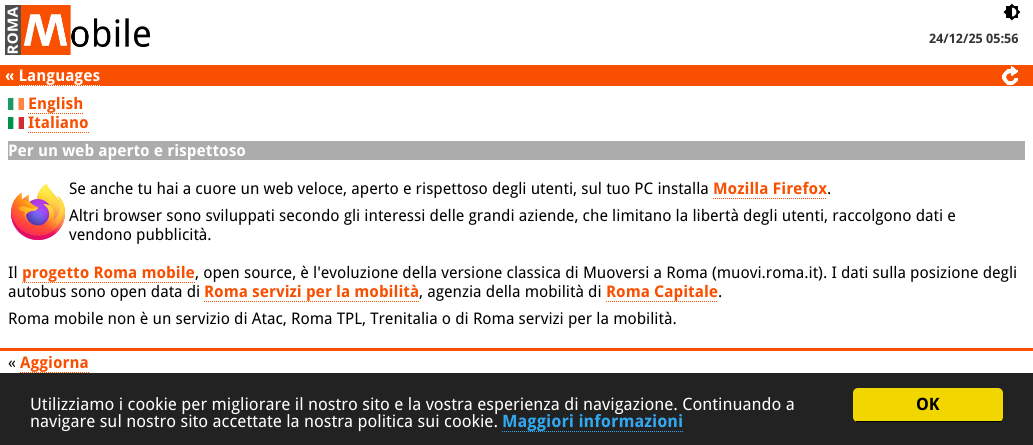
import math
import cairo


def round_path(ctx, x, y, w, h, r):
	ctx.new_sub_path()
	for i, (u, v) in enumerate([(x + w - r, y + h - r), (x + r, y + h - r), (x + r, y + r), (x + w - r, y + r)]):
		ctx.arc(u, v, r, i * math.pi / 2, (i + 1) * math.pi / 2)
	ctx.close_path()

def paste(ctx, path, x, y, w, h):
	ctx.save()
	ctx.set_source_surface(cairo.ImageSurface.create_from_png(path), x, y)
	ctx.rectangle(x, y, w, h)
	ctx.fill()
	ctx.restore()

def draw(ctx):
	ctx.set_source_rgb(1, 1, 1)
	ctx.paint()
	paste(ctx, 'media/1.png', 5, 5, 145, 50)
	paste(ctx, 'media/2.png', 1003, 3, 18, 18)
	ctx.select_font_face('Droid Sans', cairo.FONT_SLANT_NORMAL, cairo.FONT_WEIGHT_BOLD)
	ctx.set_font_size(13)
	ctx.set_source_rgb(0.2, 0.2, 0.2)
	ctx.move_to(929, 43)
	ctx.show_text('24/12/25 05:56')
	ctx.set_source_rgb(0.973, 0.31, 0)
	ctx.rectangle(0, 65, 1033, 21)
	ctx.fill()
	ctx.set_font_size(16)
	ctx.set_source_rgb(1, 1, 1)
	ctx.move_to(5, 81)
	ctx.show_text('« Languages')
	paste(ctx, 'media/3.png', 1002, 66, 16, 19)
	ctx.new_path()
	ctx.move_to(19, 85.5)
	ctx.line_to(100, 85.5)
	ctx.set_line_width(1)
	ctx.set_dash([1, 1])
	ctx.stroke()
	paste(ctx, 'media/4.png', 8, 98, 16, 12)
	ctx.set_source_rgb(0.973, 0.31, 0)
	ctx.move_to(28, 109)
	ctx.show_text('English')
	ctx.new_path()
	ctx.move_to(28, 113.5)
	ctx.line_to(83, 113.5)
	ctx.stroke()
	paste(ctx, 'media/5.png', 8, 117, 16, 12)
	ctx.move_to(28, 128)
	ctx.show_text('Italiano')
	ctx.new_path()
	ctx.move_to(28, 132.5)
	ctx.line_to(89, 132.5)
	ctx.stroke()
	ctx.set_source_rgb(0.675, 0.675, 0.675)
	ctx.rectangle(8, 141, 1017, 19)
	ctx.fill()
	ctx.set_source_rgb(1, 1, 1)
	ctx.move_to(8, 156)
	ctx.show_text('Per un web aperto e rispettoso')
	paste(ctx, 'media/6.png', 11, 184, 54, 56)
	ctx.select_font_face('Droid Sans')
	ctx.set_source_rgb(0, 0, 0)
	ctx.move_to(69, 194)
	ctx.show_text('Se anche tu hai a cuore un web veloce, aperto e rispettoso degli utenti, sul tuo PC installa')
	ctx.select_font_face('Droid Sans', cairo.FONT_SLANT_NORMAL, cairo.FONT_WEIGHT_BOLD)
	ctx.set_source_rgb(0.973, 0.31, 0)
	ctx.move_to(713, 194)
	ctx.show_text('Mozilla Firefox')
	ctx.new_path()
	ctx.move_to(713, 198.5)
	ctx.line_to(827, 198.5)
	ctx.stroke()
	ctx.select_font_face('Droid Sans')
	ctx.set_source_rgb(0, 0, 0)
	for x, y, s in [
		(827, 194, '.'),
		(69, 221, 'Altri browser sono sviluppati secondo gli interessi delle grandi aziende, che limitano la libertà degli utenti, raccolgono dati e'),
		(69, 240, 'vendono pubblicità.'),
		(8, 278, 'Il'),
	]:
		ctx.move_to(x, y)
		ctx.show_text(s)
	ctx.select_font_face('Droid Sans', cairo.FONT_SLANT_NORMAL, cairo.FONT_WEIGHT_BOLD)
	ctx.set_source_rgb(0.973, 0.31, 0)
	ctx.move_to(22, 278)
	ctx.show_text('progetto Roma mobile')
	ctx.new_path()
	ctx.move_to(22, 282.5)
	ctx.line_to(195, 282.5)
	ctx.stroke()
	ctx.select_font_face('Droid Sans')
	ctx.set_source_rgb(0, 0, 0)
	ctx.move_to(195, 278)
	ctx.show_text(', open source, è l\'evoluzione della versione classica di Muoversi a Roma (muovi.roma.it). I dati sulla posizione degli')
	ctx.move_to(8, 297)
	ctx.show_text('autobus sono open data di')
	ctx.select_font_face('Droid Sans', cairo.FONT_SLANT_NORMAL, cairo.FONT_WEIGHT_BOLD)
	ctx.set_source_rgb(0.973, 0.31, 0)
	ctx.move_to(204, 297)
	ctx.show_text('Roma servizi per la mobilità')
	ctx.new_path()
	ctx.move_to(204, 301.5)
	ctx.line_to(419, 301.5)
	ctx.stroke()
	ctx.select_font_face('Droid Sans')
	ctx.set_source_rgb(0, 0, 0)
	ctx.move_to(419, 297)
	ctx.show_text(', agenzia della mobilità di')
	ctx.select_font_face('Droid Sans', cairo.FONT_SLANT_NORMAL, cairo.FONT_WEIGHT_BOLD)
	ctx.set_source_rgb(0.973, 0.31, 0)
	ctx.move_to(606, 297)
	ctx.show_text('Roma Capitale')
	ctx.new_path()
	ctx.move_to(606, 301.5)
	ctx.line_to(718, 301.5)
	ctx.stroke()
	ctx.select_font_face('Droid Sans')
	ctx.set_source_rgb(0, 0, 0)
	ctx.move_to(718, 297)
	ctx.show_text('.')
	ctx.move_to(8, 324)
	ctx.show_text('Roma mobile non è un servizio di Atac, Roma TPL, Trenitalia o di Roma servizi per la mobilità.')
	ctx.set_source_rgb(0.973, 0.31, 0)
	ctx.rectangle(0, 348, 1033, 3)
	ctx.fill()
	ctx.set_source_rgb(0, 0, 0)
	ctx.move_to(8, 368)
	ctx.show_text('«')
	ctx.select_font_face('Droid Sans', cairo.FONT_SLANT_NORMAL, cairo.FONT_WEIGHT_BOLD)
	ctx.set_source_rgb(0.973, 0.31, 0)
	ctx.move_to(20, 368)
	ctx.show_text('Aggiorna')
	ctx.new_path()
	ctx.move_to(20, 372.5)
	ctx.line_to(89, 372.5)
	ctx.stroke()
	ctx.set_source_rgb(0.133, 0.133, 0.133)
	ctx.rectangle(0, 373, 1033, 72)
	ctx.fill()
	ctx.select_font_face('Droid Sans')
	ctx.set_font_size(17)
	ctx.set_source_rgb(1, 1, 1)
	ctx.move_to(30, 410)
	ctx.show_text('Utilizziamo i cookie per migliorare il nostro sito e la vostra esperienza di navigazione. Continuando a')
	ctx.move_to(30, 427)
	ctx.show_text('navigare sul nostro sito accettate la nostra politica sui cookie.')
	ctx.new_path()
	ctx.move_to(502, 431.5)
	ctx.line_to(684, 431.5)
	ctx.set_source_rgb(0.192, 0.659, 0.941)
	ctx.stroke()
	ctx.select_font_face('Droid Sans', cairo.FONT_SLANT_NORMAL, cairo.FONT_WEIGHT_BOLD)
	ctx.move_to(502, 427)
	ctx.show_text('Maggiori informazioni')
	ctx.set_source_rgb(0.945, 0.839, 0)
	round_path(ctx, 853, 388, 150, 34, 5)
	ctx.fill()
	ctx.set_source_rgb(0, 0, 0)
	ctx.rectangle(856, 421, 145, 1)
	ctx.fill()
	ctx.move_to(916, 410)
	ctx.show_text('OK')


surface = cairo.ImageSurface(cairo.FORMAT_RGB24, 1033, 445)
ctx = cairo.Context(surface)
options = cairo.FontOptions()
options.set_hint_metrics(cairo.HINT_METRICS_OFF)
options.set_hint_style(cairo.HINT_STYLE_NONE)
ctx.set_font_options(options)
ctx.set_miter_limit(4)
draw(ctx)
surface.write_to_png('image.png')
